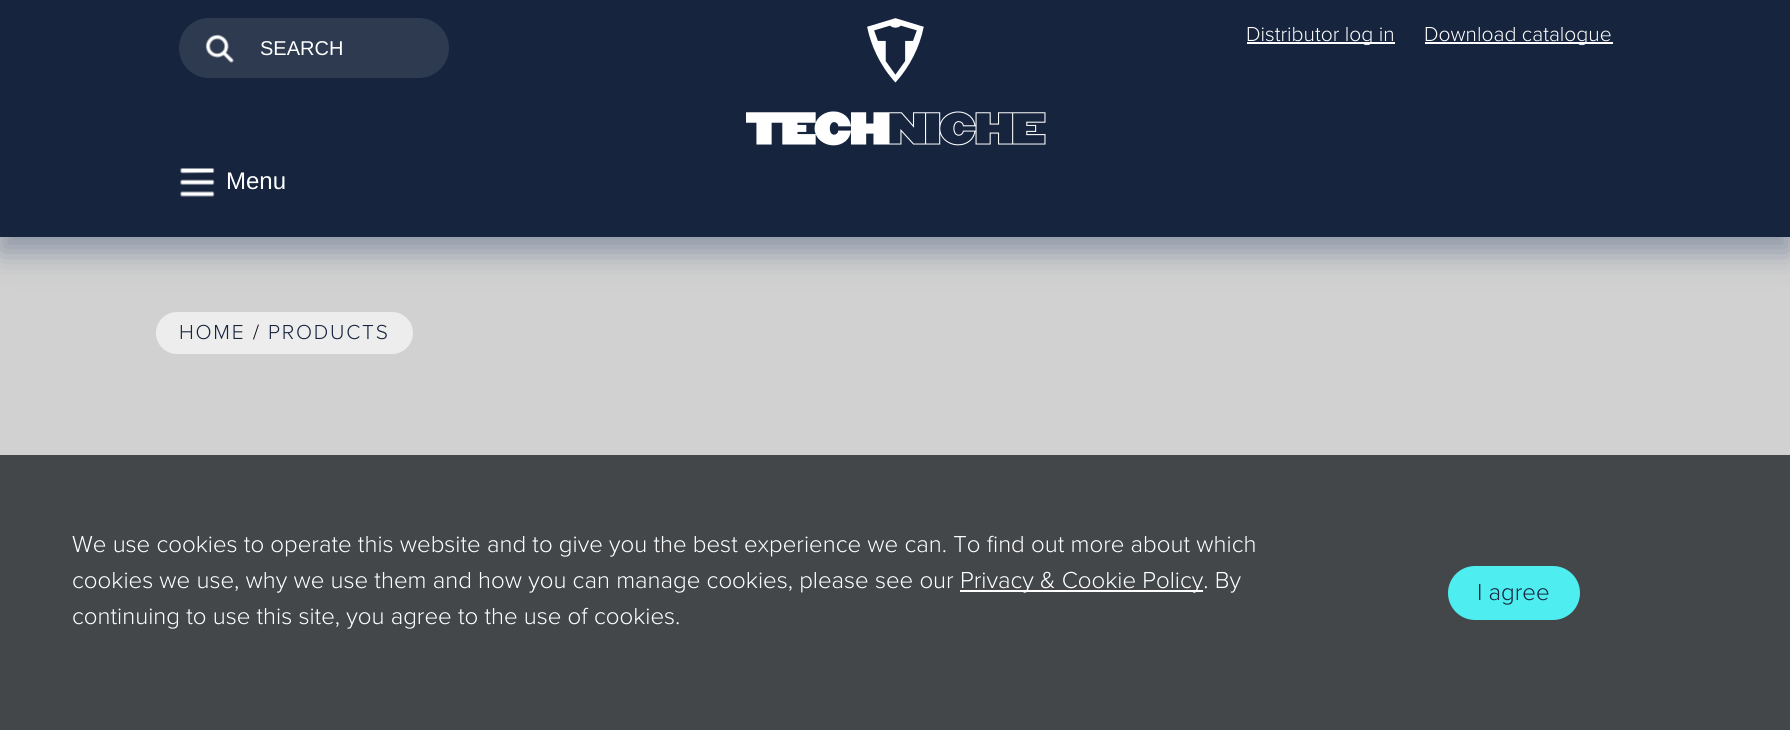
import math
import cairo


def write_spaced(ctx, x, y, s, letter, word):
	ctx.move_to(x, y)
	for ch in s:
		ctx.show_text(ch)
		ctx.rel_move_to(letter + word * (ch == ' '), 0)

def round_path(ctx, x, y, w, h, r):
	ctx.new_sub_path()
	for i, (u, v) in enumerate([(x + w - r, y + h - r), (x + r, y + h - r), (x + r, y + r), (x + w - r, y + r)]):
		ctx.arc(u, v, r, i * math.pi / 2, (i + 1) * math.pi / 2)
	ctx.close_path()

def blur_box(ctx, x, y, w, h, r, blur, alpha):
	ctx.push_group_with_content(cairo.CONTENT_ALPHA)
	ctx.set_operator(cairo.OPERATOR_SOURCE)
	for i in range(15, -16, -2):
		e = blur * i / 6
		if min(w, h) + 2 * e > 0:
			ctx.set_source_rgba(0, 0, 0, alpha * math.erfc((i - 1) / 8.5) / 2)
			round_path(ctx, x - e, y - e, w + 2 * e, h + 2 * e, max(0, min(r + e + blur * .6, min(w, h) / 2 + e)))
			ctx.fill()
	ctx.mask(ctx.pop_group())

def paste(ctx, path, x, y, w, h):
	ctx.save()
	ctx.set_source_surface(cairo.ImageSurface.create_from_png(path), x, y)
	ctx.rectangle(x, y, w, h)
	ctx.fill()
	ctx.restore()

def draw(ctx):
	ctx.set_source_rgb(0.82, 0.82, 0.82)
	ctx.paint()
	ctx.set_source_rgb(0.141, 0.227, 0.384)
	blur_box(ctx, 0, 15, 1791, 237, 0, 15, 0.4)
	ctx.set_source_rgb(0.086, 0.141, 0.239)
	ctx.rectangle(0, 0, 1790, 237)
	ctx.fill()
	paste(ctx, 'media/1.png', 746, 18, 300, 128)
	ctx.set_source_rgb(1, 1, 1)
	ctx.rectangle(1247, 42, 148, 2)
	ctx.fill()
	ctx.select_font_face('Proxima Nova Light')
	ctx.set_font_size(21)
	ctx.move_to(1246, 41)
	ctx.show_text('Distributor log in')
	ctx.rectangle(1425, 42, 188, 2)
	ctx.fill()
	ctx.move_to(1424, 41)
	ctx.show_text('Download catalogue')
	ctx.set_source_rgb(0.176, 0.227, 0.314)
	round_path(ctx, 179, 18, 270, 60, 30)
	ctx.fill()
	paste(ctx, 'media/2.png', 205, 34, 29, 29)
	ctx.select_font_face('Liberation Sans')
	ctx.set_font_size(20)
	ctx.set_source_rgb(1, 1, 1)
	ctx.move_to(260, 55)
	ctx.show_text('SEARCH')
	paste(ctx, 'media/3.png', 180, 168, 35, 29)
	ctx.set_font_size(24)
	ctx.move_to(226, 189)
	ctx.show_text('Menu')
	ctx.set_source_rgb(0.929, 0.929, 0.929)
	round_path(ctx, 156, 312, 257, 42, 21)
	ctx.fill()
	ctx.select_font_face('Proxima Nova Light')
	ctx.set_font_size(21)
	ctx.set_source_rgb(0.086, 0.141, 0.239)
	write_spaced(ctx, 179, 339, 'HOME', 1.75, 0)
	ctx.set_source_rgb(0, 0, 0)
	write_spaced(ctx, 253, 339, '/', 1.75, 0)
	ctx.set_source_rgb(0.086, 0.141, 0.239)
	write_spaced(ctx, 268, 339, 'PRODUCTS', 1.75, 0)
	ctx.set_source_rgb(0.263, 0.278, 0.29)
	ctx.rectangle(0, 455, 1790, 275)
	ctx.fill()
	ctx.set_font_size(24)
	ctx.set_source_rgb(1, 1, 1)
	ctx.move_to(72, 552)
	ctx.show_text('We use cookies to operate this website and to give you the best experience we can. To find out more about which')
	ctx.move_to(72, 588)
	ctx.show_text('cookies we use, why we use them and how you can manage cookies, please see our')
	ctx.rectangle(960, 590, 243, 2)
	ctx.fill()
	ctx.move_to(960, 588)
	ctx.show_text('Privacy & Cookie Policy. By')
	ctx.move_to(72, 624)
	ctx.show_text('continuing to use this site, you agree to the use of cookies.')
	ctx.set_source_rgb(0.302, 0.929, 0.941)
	round_path(ctx, 1448, 566, 132, 54, 27)
	ctx.fill()
	ctx.set_source_rgb(0.086, 0.141, 0.239)
	ctx.move_to(1477, 600)
	ctx.show_text('I agree')


surface = cairo.ImageSurface(cairo.FORMAT_RGB24, 1790, 730)
ctx = cairo.Context(surface)
options = cairo.FontOptions()
options.set_hint_metrics(cairo.HINT_METRICS_OFF)
options.set_hint_style(cairo.HINT_STYLE_NONE)
ctx.set_font_options(options)
ctx.set_miter_limit(4)
draw(ctx)
surface.write_to_png('image.png')
